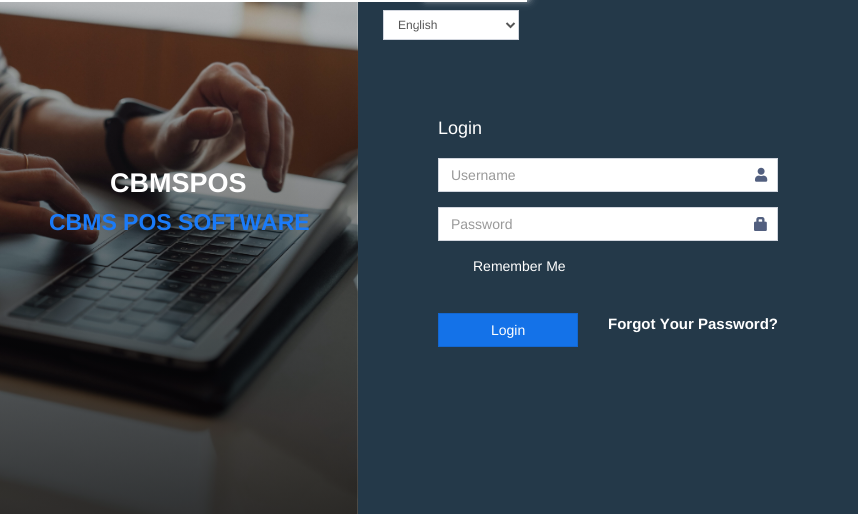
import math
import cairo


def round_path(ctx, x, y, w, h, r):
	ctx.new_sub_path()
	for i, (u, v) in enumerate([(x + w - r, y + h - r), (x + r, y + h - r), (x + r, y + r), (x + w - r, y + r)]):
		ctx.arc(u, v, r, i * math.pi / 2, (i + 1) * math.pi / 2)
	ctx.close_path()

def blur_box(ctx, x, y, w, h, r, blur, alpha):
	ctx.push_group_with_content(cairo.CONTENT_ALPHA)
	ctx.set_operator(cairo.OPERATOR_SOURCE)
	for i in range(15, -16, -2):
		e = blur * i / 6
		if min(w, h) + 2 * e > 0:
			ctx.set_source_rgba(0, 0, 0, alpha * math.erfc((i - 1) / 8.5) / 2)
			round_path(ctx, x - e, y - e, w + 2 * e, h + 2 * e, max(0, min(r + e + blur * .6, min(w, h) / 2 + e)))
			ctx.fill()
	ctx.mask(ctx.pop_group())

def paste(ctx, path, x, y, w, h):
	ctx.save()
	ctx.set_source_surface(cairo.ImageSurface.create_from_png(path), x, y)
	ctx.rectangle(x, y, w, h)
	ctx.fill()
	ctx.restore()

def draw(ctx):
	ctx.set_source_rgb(1, 1, 1)
	ctx.paint()
	ctx.set_source_rgb(0.141, 0.224, 0.286)
	ctx.rectangle(358, 0, 500, 514)
	ctx.fill()
	ctx.set_source_rgb(1, 1, 1)
	ctx.rectangle(358, 0, 169, 2)
	ctx.fill()
	ctx.set_source_rgb(1, 1, 1)
	blur_box(ctx, 427, -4, 100, 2, 0, 2.5, 1)
	ctx.set_source_rgb(1, 1, 1)
	ctx.rectangle(383.5, 10.5, 135, 29)
	ctx.fill_preserve()
	ctx.set_source_rgb(0.824, 0.839, 0.871)
	ctx.set_line_width(1)
	ctx.stroke()
	ctx.set_source_rgb(1, 1, 1)
	blur_box(ctx, 427, -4, 100, 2, 0, 5, 1)
	ctx.select_font_face('Liberation Sans')
	ctx.set_font_size(12)
	ctx.set_source_rgb(0.333, 0.333, 0.333)
	ctx.move_to(398, 29)
	ctx.show_text('English')
	ctx.new_path()
	ctx.move_to(418, 26)
	ctx.curve_to(412, 20.5, 420.5, 12, 426, 18)
	ctx.set_source_rgb(1, 1, 1)
	ctx.set_line_width(2)
	ctx.stroke()
	paste(ctx, 'media/1.png', 0, 2, 358, 512)
	ctx.select_font_face('Liberation Sans', cairo.FONT_SLANT_NORMAL, cairo.FONT_WEIGHT_BOLD)
	ctx.set_font_size(27)
	ctx.move_to(110, 192)
	ctx.show_text('CBMSPOS')
	ctx.set_font_size(23)
	ctx.set_source_rgb(0.102, 0.482, 0.976)
	ctx.move_to(49, 230)
	ctx.show_text('CBMS POS SOFTWARE')
	ctx.new_path()
	ctx.move_to(506.5, 23)
	ctx.line_to(510.5, 27)
	ctx.line_to(514.5, 23)
	ctx.set_source_rgb(0.333, 0.333, 0.333)
	ctx.stroke()
	ctx.select_font_face('Liberation Sans')
	ctx.set_font_size(18)
	ctx.set_source_rgb(1, 1, 1)
	ctx.move_to(438, 134)
	ctx.show_text('Login')
	ctx.rectangle(438.5, 158.5, 339, 33)
	ctx.fill_preserve()
	ctx.set_source_rgb(0.824, 0.839, 0.871)
	ctx.set_line_width(1)
	ctx.stroke()
	ctx.set_font_size(14)
	ctx.set_source_rgb(0.6, 0.6, 0.6)
	ctx.move_to(451, 180)
	ctx.show_text('Username')
	paste(ctx, 'media/2.png', 755, 167, 13, 15)
	ctx.set_source_rgb(1, 1, 1)
	ctx.rectangle(438.5, 207.5, 339, 33)
	ctx.fill_preserve()
	ctx.set_source_rgb(0.824, 0.839, 0.871)
	ctx.stroke()
	ctx.set_source_rgb(0.6, 0.6, 0.6)
	ctx.move_to(451, 229)
	ctx.show_text('Password')
	paste(ctx, 'media/3.png', 754, 217, 13, 14)
	ctx.set_source_rgb(1, 1, 1)
	ctx.move_to(473, 271)
	ctx.show_text('Remember Me')
	ctx.set_source_rgb(0.082, 0.447, 0.91)
	ctx.rectangle(438.5, 313.5, 139, 33)
	ctx.fill_preserve()
	ctx.set_source_rgb(0.075, 0.404, 0.82)
	ctx.stroke()
	ctx.set_source_rgb(1, 1, 1)
	ctx.move_to(491, 335)
	ctx.show_text('Login')
	ctx.select_font_face('Liberation Sans', cairo.FONT_SLANT_NORMAL, cairo.FONT_WEIGHT_BOLD)
	ctx.set_font_size(15)
	ctx.move_to(608, 329)
	ctx.show_text('Forgot Your Password?')


surface = cairo.ImageSurface(cairo.FORMAT_RGB24, 858, 514)
ctx = cairo.Context(surface)
options = cairo.FontOptions()
options.set_hint_metrics(cairo.HINT_METRICS_OFF)
options.set_hint_style(cairo.HINT_STYLE_NONE)
ctx.set_font_options(options)
ctx.set_miter_limit(4)
draw(ctx)
surface.write_to_png('image.png')
